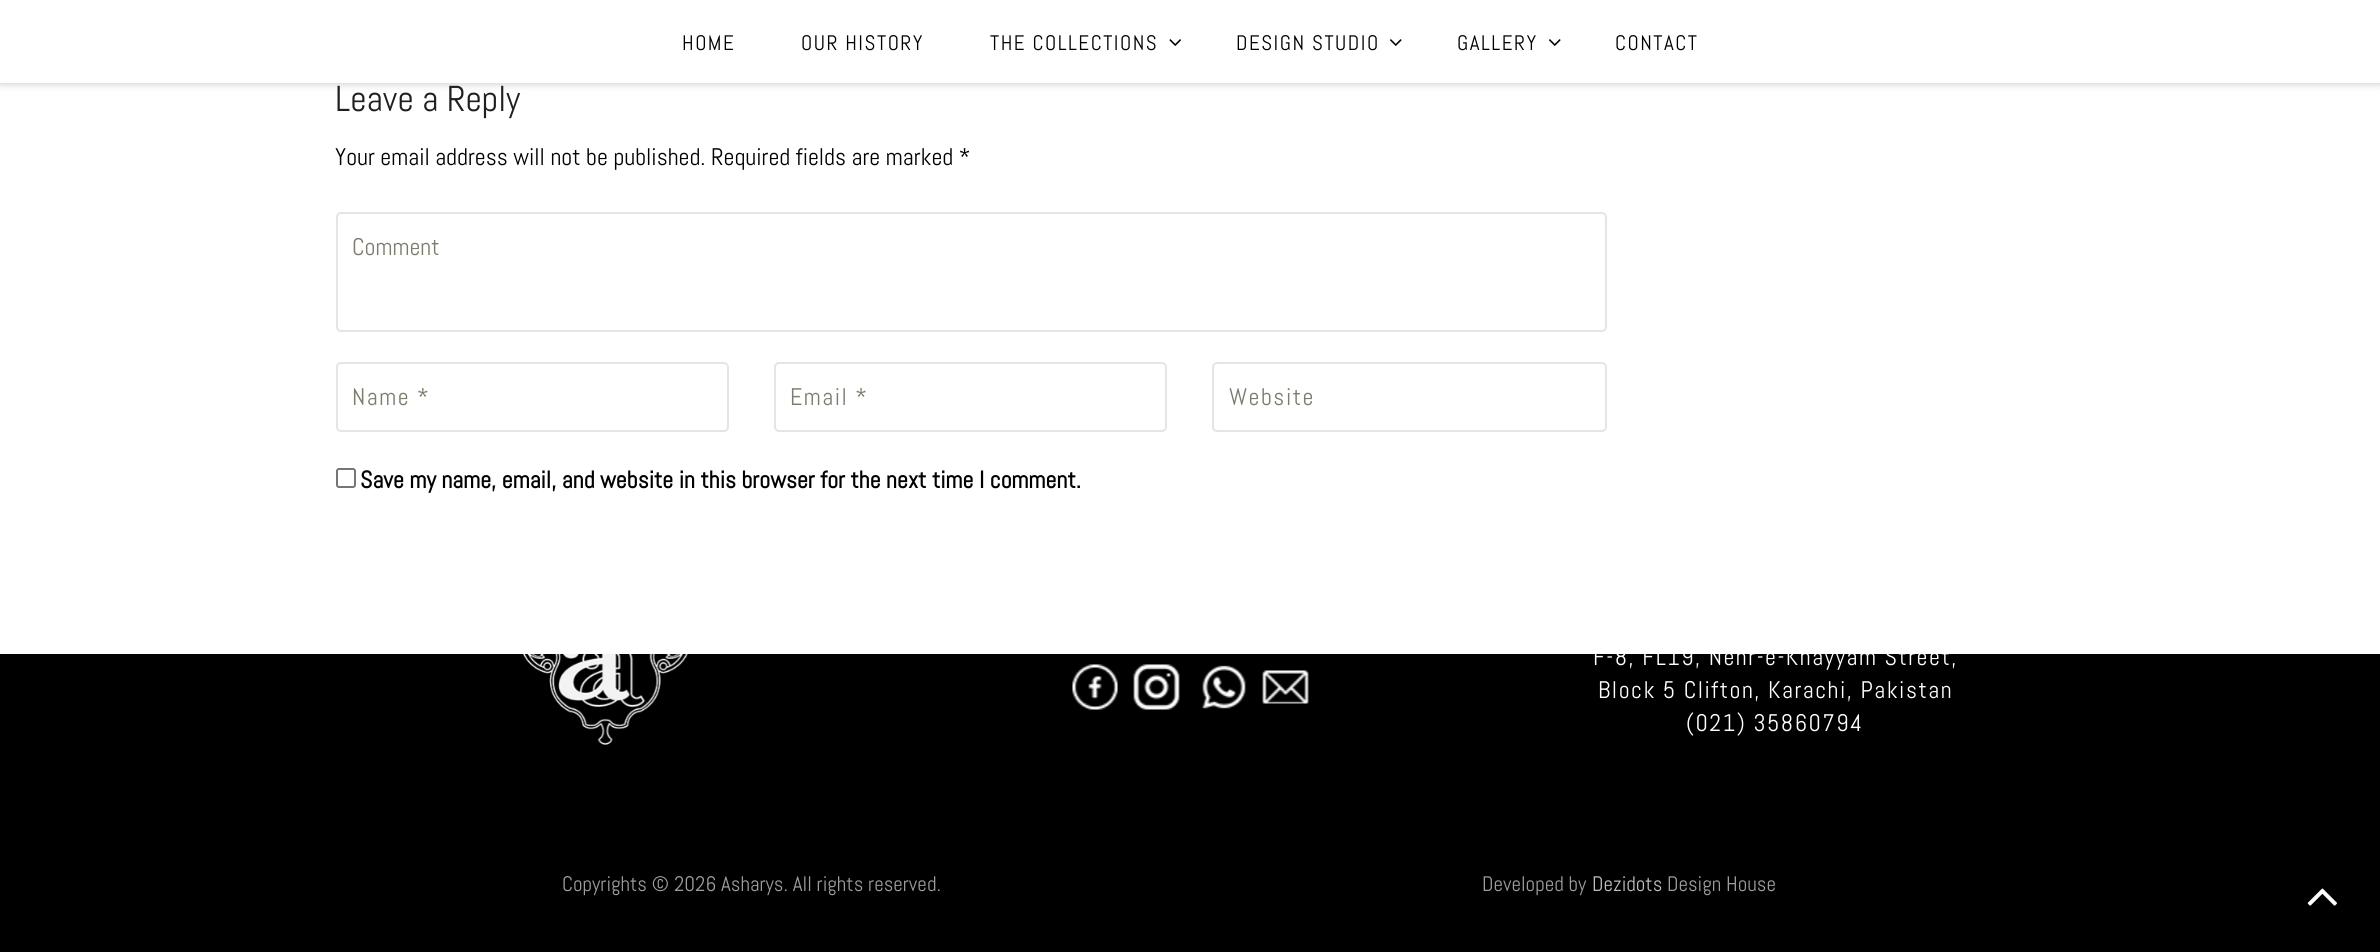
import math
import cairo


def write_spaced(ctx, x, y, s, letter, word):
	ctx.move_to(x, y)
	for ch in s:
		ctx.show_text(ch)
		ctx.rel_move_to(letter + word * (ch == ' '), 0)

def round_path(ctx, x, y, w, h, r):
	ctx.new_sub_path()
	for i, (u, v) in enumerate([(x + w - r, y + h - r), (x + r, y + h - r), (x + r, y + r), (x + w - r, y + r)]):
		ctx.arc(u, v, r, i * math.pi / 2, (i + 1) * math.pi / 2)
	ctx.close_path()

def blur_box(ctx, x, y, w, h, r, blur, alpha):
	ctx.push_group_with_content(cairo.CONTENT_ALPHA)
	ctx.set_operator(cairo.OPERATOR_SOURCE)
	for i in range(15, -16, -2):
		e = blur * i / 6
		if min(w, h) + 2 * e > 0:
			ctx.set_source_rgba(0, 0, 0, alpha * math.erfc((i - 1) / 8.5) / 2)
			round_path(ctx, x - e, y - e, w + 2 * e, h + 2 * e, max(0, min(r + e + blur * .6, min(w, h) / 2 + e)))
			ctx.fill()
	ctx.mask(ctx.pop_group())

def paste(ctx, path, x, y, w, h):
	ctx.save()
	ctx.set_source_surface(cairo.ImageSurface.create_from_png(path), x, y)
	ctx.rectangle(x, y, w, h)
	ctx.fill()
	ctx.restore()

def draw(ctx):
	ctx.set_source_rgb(0, 0, 0)
	ctx.paint()
	ctx.set_source_rgb(1, 1, 1)
	ctx.rectangle(0, 83, 2380, 571)
	ctx.fill()
	ctx.set_source_rgb(0, 0, 0)
	blur_box(ctx, 0, 2, 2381, 82, 0, 4, 0.2)
	ctx.set_source_rgb(1, 1, 1)
	ctx.rectangle(0, 0, 2380, 83)
	ctx.fill()
	ctx.select_font_face('Abel')
	ctx.set_font_size(21)
	ctx.set_source_rgb(0, 0, 0)
	for x, y, s in [
		(682, 50, 'HOME'),
		(801, 50, 'OUR HISTORY'),
		(990, 50, 'THE COLLECTIONS'),
	]:
		write_spaced(ctx, x, y, s, 1.5, 0)
	paste(ctx, 'media/1.png', 1169, 39, 12, 7)
	write_spaced(ctx, 1236, 50, 'DESIGN STUDIO', 1.5, 0)
	paste(ctx, 'media/2.png', 1390, 39, 12, 7)
	write_spaced(ctx, 1457, 50, 'GALLERY', 1.5, 0)
	paste(ctx, 'media/2.png', 1549, 39, 12, 7)
	write_spaced(ctx, 1615, 50, 'CONTACT', 1.5, 0)
	ctx.set_font_size(36)
	ctx.set_source_rgb(0.125, 0.125, 0.125)
	ctx.move_to(335, 111)
	ctx.show_text('Leave a Reply')
	ctx.set_font_size(24)
	ctx.set_source_rgb(0, 0, 0)
	ctx.move_to(335, 165)
	ctx.show_text('Your email address will not be published. Required fields are marked *')
	round_path(ctx, 337, 213, 1269, 118, 4)
	ctx.set_source_rgb(0.898, 0.898, 0.898)
	ctx.stroke()
	ctx.set_source_rgb(0.49, 0.482, 0.427)
	ctx.move_to(352, 255)
	ctx.show_text('Comment')
	round_path(ctx, 337, 363, 391, 68, 4)
	ctx.set_source_rgb(0.898, 0.898, 0.898)
	ctx.stroke()
	ctx.set_source_rgb(0.49, 0.482, 0.427)
	write_spaced(ctx, 352, 405, 'Name *', 1.5, 0)
	round_path(ctx, 775, 363, 391, 68, 4)
	ctx.set_source_rgb(0.898, 0.898, 0.898)
	ctx.stroke()
	ctx.set_source_rgb(0.49, 0.482, 0.427)
	write_spaced(ctx, 790, 405, 'Email *', 1.5, 0)
	round_path(ctx, 1213, 363, 393, 68, 4)
	ctx.set_source_rgb(0.898, 0.898, 0.898)
	ctx.stroke()
	ctx.set_source_rgb(0.49, 0.482, 0.427)
	write_spaced(ctx, 1229, 405, 'Website', 1.5, 0)
	round_path(ctx, 337, 469, 18, 18, 2)
	ctx.set_source_rgb(0.463, 0.463, 0.463)
	ctx.stroke()
	ctx.select_font_face('Abel', cairo.FONT_SLANT_NORMAL, cairo.FONT_WEIGHT_BOLD)
	ctx.set_source_rgb(0, 0, 0)
	ctx.move_to(360, 488)
	ctx.show_text('Save my name, email, and website in this browser for the next time I comment.')
	paste(ctx, 'media/3.png', 520, 654, 171, 91)
	paste(ctx, 'media/4.png', 1072, 664, 46, 46)
	paste(ctx, 'media/5.png', 1133, 664, 47, 46)
	paste(ctx, 'media/6.png', 1202, 665, 44, 44)
	paste(ctx, 'media/7.png', 1262, 670, 47, 34)
	ctx.select_font_face('Abel')
	ctx.set_source_rgb(1, 1, 1)
	for x, y, s in [
		(1593, 665, 'F-8, FL19, Nehr-e-Khayyam Street,'),
		(1598, 698, 'Block 5 Clifton, Karachi, Pakistan'),
		(1686, 731, '(021) 35860794'),
	]:
		write_spaced(ctx, x, y, s, 1.5, 0)
	ctx.set_font_size(21)
	ctx.set_source_rgb(0.62, 0.62, 0.62)
	ctx.move_to(562, 891)
	ctx.show_text('Copyrights © 2026 Asharys. All rights reserved.')
	ctx.move_to(1482, 891)
	ctx.show_text('Developed by')
	ctx.set_source_rgb(0.749, 0.749, 0.749)
	ctx.move_to(1592, 891)
	ctx.show_text('Dezidots')
	ctx.set_source_rgb(0.62, 0.62, 0.62)
	ctx.move_to(1667, 891)
	ctx.show_text('Design House')
	paste(ctx, 'media/8.png', 2307, 888, 30, 18)


surface = cairo.ImageSurface(cairo.FORMAT_RGB24, 2380, 952)
ctx = cairo.Context(surface)
options = cairo.FontOptions()
options.set_hint_metrics(cairo.HINT_METRICS_OFF)
options.set_hint_style(cairo.HINT_STYLE_NONE)
ctx.set_font_options(options)
ctx.set_miter_limit(4)
draw(ctx)
surface.write_to_png('image.png')
